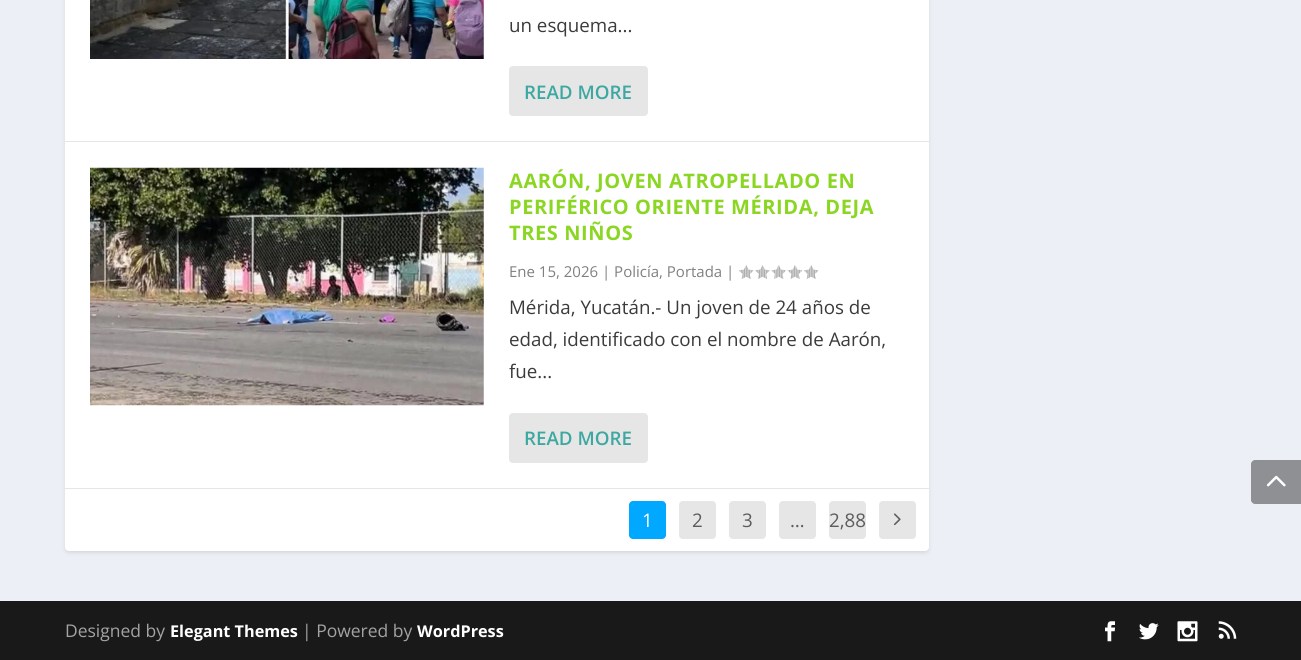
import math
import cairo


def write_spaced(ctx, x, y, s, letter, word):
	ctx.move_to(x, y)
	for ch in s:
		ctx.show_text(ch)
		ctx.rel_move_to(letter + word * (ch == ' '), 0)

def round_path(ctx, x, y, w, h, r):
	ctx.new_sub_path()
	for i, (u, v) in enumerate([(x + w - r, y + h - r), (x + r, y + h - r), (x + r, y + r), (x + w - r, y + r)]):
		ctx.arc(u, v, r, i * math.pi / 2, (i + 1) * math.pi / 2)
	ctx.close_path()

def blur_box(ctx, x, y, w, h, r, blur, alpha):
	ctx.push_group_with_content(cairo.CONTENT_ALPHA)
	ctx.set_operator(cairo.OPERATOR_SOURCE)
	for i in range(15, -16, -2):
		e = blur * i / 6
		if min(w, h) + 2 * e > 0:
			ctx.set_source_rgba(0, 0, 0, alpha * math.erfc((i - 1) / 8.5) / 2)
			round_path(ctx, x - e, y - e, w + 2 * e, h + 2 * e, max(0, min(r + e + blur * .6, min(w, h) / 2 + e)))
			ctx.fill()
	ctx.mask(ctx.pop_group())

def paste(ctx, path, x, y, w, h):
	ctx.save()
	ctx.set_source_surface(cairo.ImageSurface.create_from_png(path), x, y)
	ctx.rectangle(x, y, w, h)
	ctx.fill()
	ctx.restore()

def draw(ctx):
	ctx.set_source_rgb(0.925, 0.941, 0.961)
	ctx.paint()
	ctx.set_source_rgb(0, 0, 0)
	blur_box(ctx, 65, -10, 864, 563, 4, 2, 0.1)
	ctx.set_source_rgb(1, 1, 1)
	round_path(ctx, 65, -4, 864, 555, 4)
	ctx.fill()
	ctx.set_source_rgb(0.902, 0.902, 0.902)
	ctx.rectangle(65, 141, 864, 1)
	ctx.fill()
	paste(ctx, 'media/1.png', 90, 0, 394, 59)
	ctx.select_font_face('Open Sans')
	ctx.set_font_size(18.75)
	ctx.set_source_rgb(0.231, 0.231, 0.231)
	ctx.move_to(509, 32)
	ctx.show_text('un esquema...')
	ctx.set_source_rgb(0.902, 0.902, 0.902)
	round_path(ctx, 509, 66, 139, 50, 4)
	ctx.fill()
	ctx.select_font_face('Open Sans SemiBold')
	ctx.set_source_rgb(0.239, 0.659, 0.631)
	ctx.move_to(524, 99)
	ctx.show_text('READ MORE')
	ctx.set_source_rgb(0.902, 0.902, 0.902)
	ctx.rectangle(65, 488, 864, 1)
	ctx.fill()
	paste(ctx, 'media/2.png', 90, 167, 394, 239)
	ctx.select_font_face('Open Sans', cairo.FONT_SLANT_NORMAL, cairo.FONT_WEIGHT_BOLD)
	ctx.set_font_size(20)
	ctx.set_source_rgb(0.545, 0.839, 0.137)
	for x, y, s in [
		(509, 188, 'AARÓN, JOVEN ATROPELLADO EN'),
		(509, 214, 'PERIFÉRICO ORIENTE MÉRIDA, DEJA'),
		(509, 240, 'TRES NIÑOS'),
	]:
		write_spaced(ctx, x, y, s, 0.6, 0)
	ctx.select_font_face('Open Sans')
	ctx.set_font_size(15)
	ctx.set_source_rgb(0.502, 0.502, 0.502)
	ctx.move_to(509, 277)
	ctx.show_text('Ene 15, 2026 | Policía, Portada |')
	paste(ctx, 'media/3.png', 739, 265, 15, 14)
	paste(ctx, 'media/4.png', 755, 265, 15, 14)
	paste(ctx, 'media/5.png', 771, 265, 15, 14)
	paste(ctx, 'media/6.png', 787, 265, 16, 14)
	paste(ctx, 'media/3.png', 804, 265, 15, 14)
	ctx.set_font_size(18.75)
	ctx.set_source_rgb(0.231, 0.231, 0.231)
	for x, y, s in [
		(509, 314, 'Mérida, Yucatán.- Un joven de 24 años de'),
		(509, 346, 'edad, identificado con el nombre de Aarón,'),
		(509, 378, 'fue...'),
	]:
		ctx.move_to(x, y)
		ctx.show_text(s)
	ctx.set_source_rgb(0.902, 0.902, 0.902)
	round_path(ctx, 509, 413, 139, 50, 4)
	ctx.fill()
	ctx.select_font_face('Open Sans SemiBold')
	ctx.set_source_rgb(0.239, 0.659, 0.631)
	ctx.move_to(524, 445)
	ctx.show_text('READ MORE')
	ctx.set_source_rgb(0, 0.659, 1)
	round_path(ctx, 629, 501, 37, 38, 4)
	ctx.fill()
	ctx.select_font_face('Open Sans')
	ctx.set_source_rgb(1, 1, 1)
	ctx.move_to(642, 527)
	ctx.show_text('1')
	ctx.set_source_rgb(0.902, 0.902, 0.902)
	round_path(ctx, 679, 501, 37, 38, 4)
	ctx.fill()
	ctx.set_source_rgb(0.361, 0.361, 0.361)
	ctx.move_to(692, 527)
	ctx.show_text('2')
	ctx.set_source_rgb(0.902, 0.902, 0.902)
	round_path(ctx, 729, 501, 37, 38, 4)
	ctx.fill()
	ctx.set_source_rgb(0.361, 0.361, 0.361)
	ctx.move_to(742, 527)
	ctx.show_text('3')
	ctx.set_source_rgb(0.902, 0.902, 0.902)
	round_path(ctx, 779, 501, 37, 38, 4)
	ctx.fill()
	ctx.set_source_rgb(0.361, 0.361, 0.361)
	ctx.move_to(790, 527)
	ctx.show_text('…')
	ctx.set_source_rgb(0.902, 0.902, 0.902)
	round_path(ctx, 829, 501, 37, 38, 4)
	ctx.fill()
	ctx.set_source_rgb(0.361, 0.361, 0.361)
	ctx.move_to(829, 527)
	ctx.show_text('2,88')
	ctx.set_source_rgb(0.902, 0.902, 0.902)
	round_path(ctx, 879, 501, 37, 38, 4)
	ctx.fill()
	paste(ctx, 'media/7.png', 894, 513, 7, 13)
	ctx.set_source_rgb(0.098, 0.098, 0.098)
	ctx.rectangle(0, 601, 1301, 59)
	ctx.fill()
	ctx.set_font_size(17.5)
	ctx.set_source_rgb(0.639, 0.639, 0.639)
	ctx.move_to(65, 637)
	ctx.show_text('Designed by')
	ctx.select_font_face('Open Sans', cairo.FONT_SLANT_NORMAL, cairo.FONT_WEIGHT_BOLD)
	ctx.set_font_size(16.25)
	ctx.set_source_rgb(1, 1, 1)
	ctx.move_to(170, 637)
	ctx.show_text('Elegant Themes')
	ctx.select_font_face('Open Sans')
	ctx.set_font_size(17.5)
	ctx.set_source_rgb(0.639, 0.639, 0.639)
	ctx.move_to(302, 637)
	ctx.show_text('| Powered by')
	ctx.select_font_face('Open Sans', cairo.FONT_SLANT_NORMAL, cairo.FONT_WEIGHT_BOLD)
	ctx.set_font_size(16.25)
	ctx.set_source_rgb(1, 1, 1)
	ctx.move_to(417, 637)
	ctx.show_text('WordPress')
	paste(ctx, 'media/8.png', 1105, 621, 10, 21)
	paste(ctx, 'media/9.png', 1139, 623, 20, 17)
	paste(ctx, 'media/10.png', 1177, 621, 21, 21)
	paste(ctx, 'media/11.png', 1218, 621, 19, 18)
	ctx.set_source_rgb(0.557, 0.565, 0.576)
	ctx.new_path()
	ctx.move_to(1255, 460)
	ctx.line_to(1301, 460)
	ctx.line_to(1301, 504)
	ctx.line_to(1255, 504)
	ctx.curve_to(1253, 504, 1251, 502, 1251, 500)
	ctx.line_to(1251, 464)
	ctx.curve_to(1251, 462, 1253, 460, 1255, 460)
	ctx.close_path()
	ctx.fill()
	paste(ctx, 'media/12.png', 1266, 475, 20, 12)


surface = cairo.ImageSurface(cairo.FORMAT_RGB24, 1301, 660)
ctx = cairo.Context(surface)
options = cairo.FontOptions()
options.set_hint_metrics(cairo.HINT_METRICS_OFF)
options.set_hint_style(cairo.HINT_STYLE_NONE)
ctx.set_font_options(options)
ctx.set_miter_limit(4)
draw(ctx)
surface.write_to_png('image.png')
